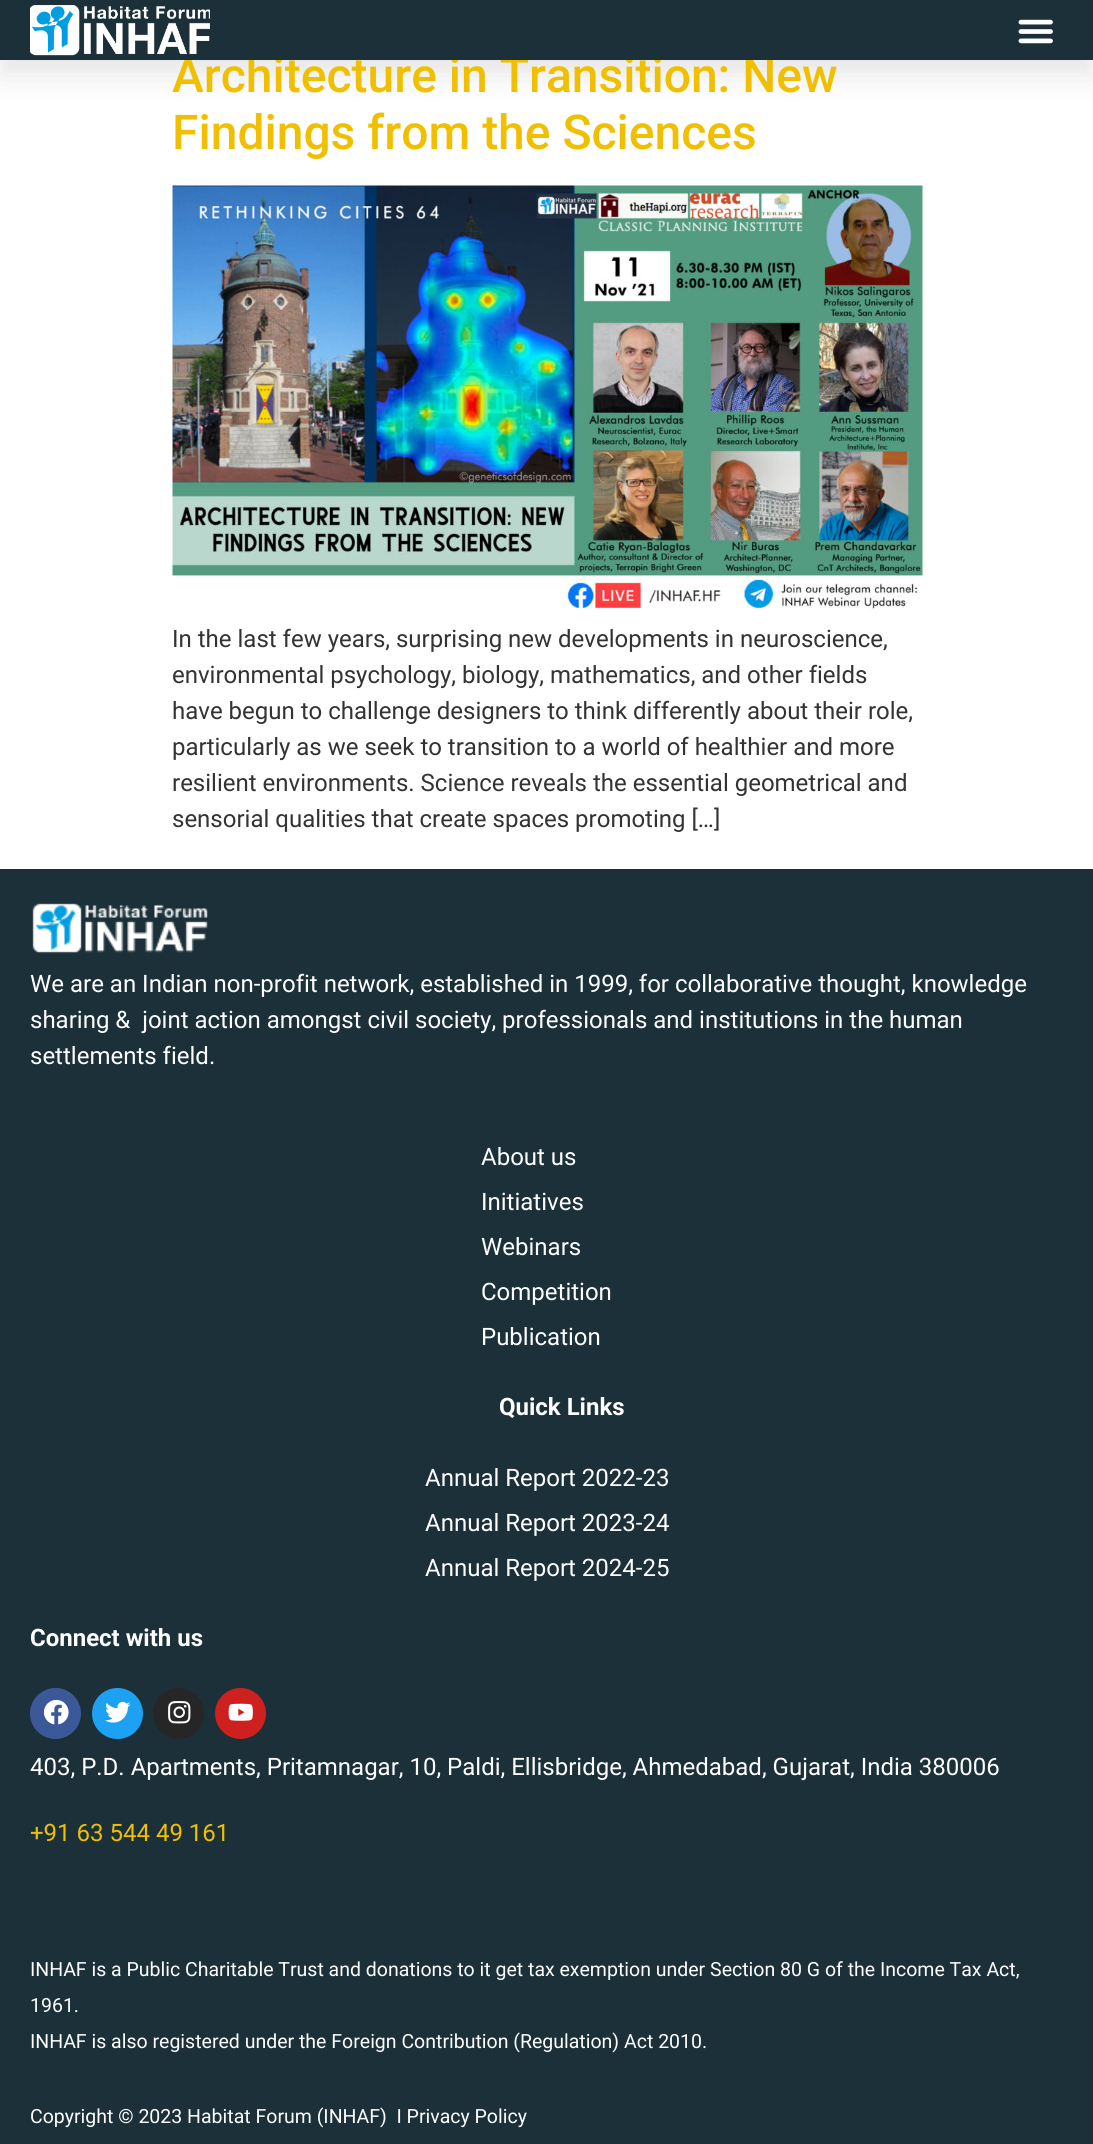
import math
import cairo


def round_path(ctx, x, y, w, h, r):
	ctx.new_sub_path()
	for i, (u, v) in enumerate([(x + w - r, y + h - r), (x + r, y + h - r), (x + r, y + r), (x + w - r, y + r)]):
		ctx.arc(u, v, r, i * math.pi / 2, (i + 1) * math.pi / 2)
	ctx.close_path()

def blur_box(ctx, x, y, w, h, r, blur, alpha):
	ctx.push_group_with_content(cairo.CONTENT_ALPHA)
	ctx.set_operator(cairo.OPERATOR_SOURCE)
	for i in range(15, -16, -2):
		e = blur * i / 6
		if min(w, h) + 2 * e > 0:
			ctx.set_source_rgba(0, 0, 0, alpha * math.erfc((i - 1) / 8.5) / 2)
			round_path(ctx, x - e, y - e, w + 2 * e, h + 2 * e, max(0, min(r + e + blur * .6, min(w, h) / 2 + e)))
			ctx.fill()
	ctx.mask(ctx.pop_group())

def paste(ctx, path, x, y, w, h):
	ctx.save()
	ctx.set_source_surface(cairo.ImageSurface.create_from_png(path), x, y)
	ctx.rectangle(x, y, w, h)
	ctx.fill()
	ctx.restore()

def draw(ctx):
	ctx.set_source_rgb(1, 1, 1)
	ctx.paint()
	ctx.set_source_rgb(0, 0, 0)
	blur_box(ctx, 0, 15, 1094, 60, 0, 15, 0.1)
	ctx.select_font_face('Roboto Medium')
	ctx.set_font_size(48)
	ctx.set_source_rgb(0.941, 0.753, 0)
	ctx.move_to(172, 92)
	ctx.show_text('Architecture in Transition: New')
	ctx.set_source_rgb(0.106, 0.188, 0.224)
	ctx.rectangle(0, 0, 1093, 60)
	ctx.fill()
	paste(ctx, 'media/1.png', 30, 5, 180, 51)
	paste(ctx, 'media/2.png', 1018, 19, 35, 25)
	ctx.set_source_rgb(0.941, 0.753, 0)
	ctx.move_to(172, 149)
	ctx.show_text('Findings from the Sciences')
	paste(ctx, 'media/3.png', 172, 185, 751, 426)
	ctx.select_font_face('Roboto')
	ctx.set_font_size(24)
	ctx.set_source_rgb(0.2, 0.2, 0.2)
	for x, y, s in [
		(172, 647, 'In the last few years, surprising new developments in neuroscience,'),
		(172, 683, 'environmental psychology, biology, mathematics, and other fields'),
		(172, 719, 'have begun to challenge designers to think differently about their role,'),
		(172, 755, 'particularly as we seek to transition to a world of healthier and more'),
		(172, 791, 'resilient environments. Science reveals the essential geometrical and'),
		(172, 827, 'sensorial qualities that create spaces promoting […]'),
	]:
		ctx.move_to(x, y)
		ctx.show_text(s)
	ctx.set_source_rgb(0.106, 0.188, 0.224)
	ctx.rectangle(0, 869, 1093, 1275)
	ctx.fill()
	paste(ctx, 'media/4.png', 32, 903, 176, 51)
	ctx.set_source_rgb(1, 1, 1)
	for x, y, s in [
		(30, 992, 'We are an Indian non-profit network, established in 1999, for collaborative thought, knowledge'),
		(30, 1028, 'sharing &  joint action amongst civil society, professionals and institutions in the human'),
		(30, 1064, 'settlements field.'),
		(481, 1165, 'About us'),
		(481, 1210, 'Initiatives'),
		(481, 1255, 'Webinars'),
		(481, 1300, 'Competition'),
		(481, 1345, 'Publication'),
	]:
		ctx.move_to(x, y)
		ctx.show_text(s)
	ctx.select_font_face('Roboto', cairo.FONT_SLANT_NORMAL, cairo.FONT_WEIGHT_BOLD)
	ctx.move_to(499, 1415)
	ctx.show_text('Quick Links')
	ctx.select_font_face('Roboto')
	for x, y, s in [
		(425, 1486, 'Annual Report 2022-23'),
		(425, 1531, 'Annual Report 2023-24'),
		(425, 1576, 'Annual Report 2024-25'),
	]:
		ctx.move_to(x, y)
		ctx.show_text(s)
	ctx.select_font_face('Roboto', cairo.FONT_SLANT_NORMAL, cairo.FONT_WEIGHT_BOLD)
	ctx.move_to(30, 1646)
	ctx.show_text('Connect with us')
	ctx.set_source_rgb(0.231, 0.349, 0.596)
	ctx.new_path()
	ctx.arc(55.5, 1713.5, 25.5, 0, 2 * math.pi)
	ctx.fill()
	paste(ctx, 'media/5.png', 44, 1700, 25, 25)
	ctx.set_source_rgb(0.114, 0.631, 0.949)
	ctx.arc(117.5, 1713.5, 25.5, 0, 2 * math.pi)
	ctx.fill()
	paste(ctx, 'media/6.png', 105, 1701, 26, 22)
	ctx.set_source_rgb(0.149, 0.149, 0.149)
	ctx.arc(178.5, 1713.5, 25.5, 0, 2 * math.pi)
	ctx.fill()
	paste(ctx, 'media/7.png', 168, 1701, 23, 23)
	ctx.set_source_rgb(0.804, 0.125, 0.122)
	ctx.arc(240.5, 1713.5, 25.5, 0, 2 * math.pi)
	ctx.fill()
	paste(ctx, 'media/8.png', 228, 1703, 25, 18)
	ctx.select_font_face('Roboto')
	ctx.set_source_rgb(1, 1, 1)
	ctx.move_to(30, 1775)
	ctx.show_text('403, P.D. Apartments, Pritamnagar, 10, Paldi, Ellisbridge, Ahmedabad, Gujarat, India 380006')
	ctx.set_source_rgb(0.941, 0.753, 0)
	ctx.move_to(30, 1841)
	ctx.show_text('+91 63 544 49 161')
	ctx.set_font_size(19.5)
	ctx.set_source_rgb(1, 1, 1)
	for x, y, s in [
		(30, 1976, 'INHAF is a Public Charitable Trust and donations to it get tax exemption under Section 80 G of the Income Tax Act,'),
		(30, 2012, '1961.'),
		(30, 2048, 'INHAF is also registered under the Foreign Contribution (Regulation) Act 2010.'),
		(30, 2123, 'Copyright © 2023 Habitat Forum (INHAF)  I Privacy Policy'),
	]:
		ctx.move_to(x, y)
		ctx.show_text(s)


surface = cairo.ImageSurface(cairo.FORMAT_RGB24, 1093, 2144)
ctx = cairo.Context(surface)
options = cairo.FontOptions()
options.set_hint_metrics(cairo.HINT_METRICS_OFF)
options.set_hint_style(cairo.HINT_STYLE_NONE)
ctx.set_font_options(options)
ctx.set_miter_limit(4)
draw(ctx)
surface.write_to_png('image.png')
